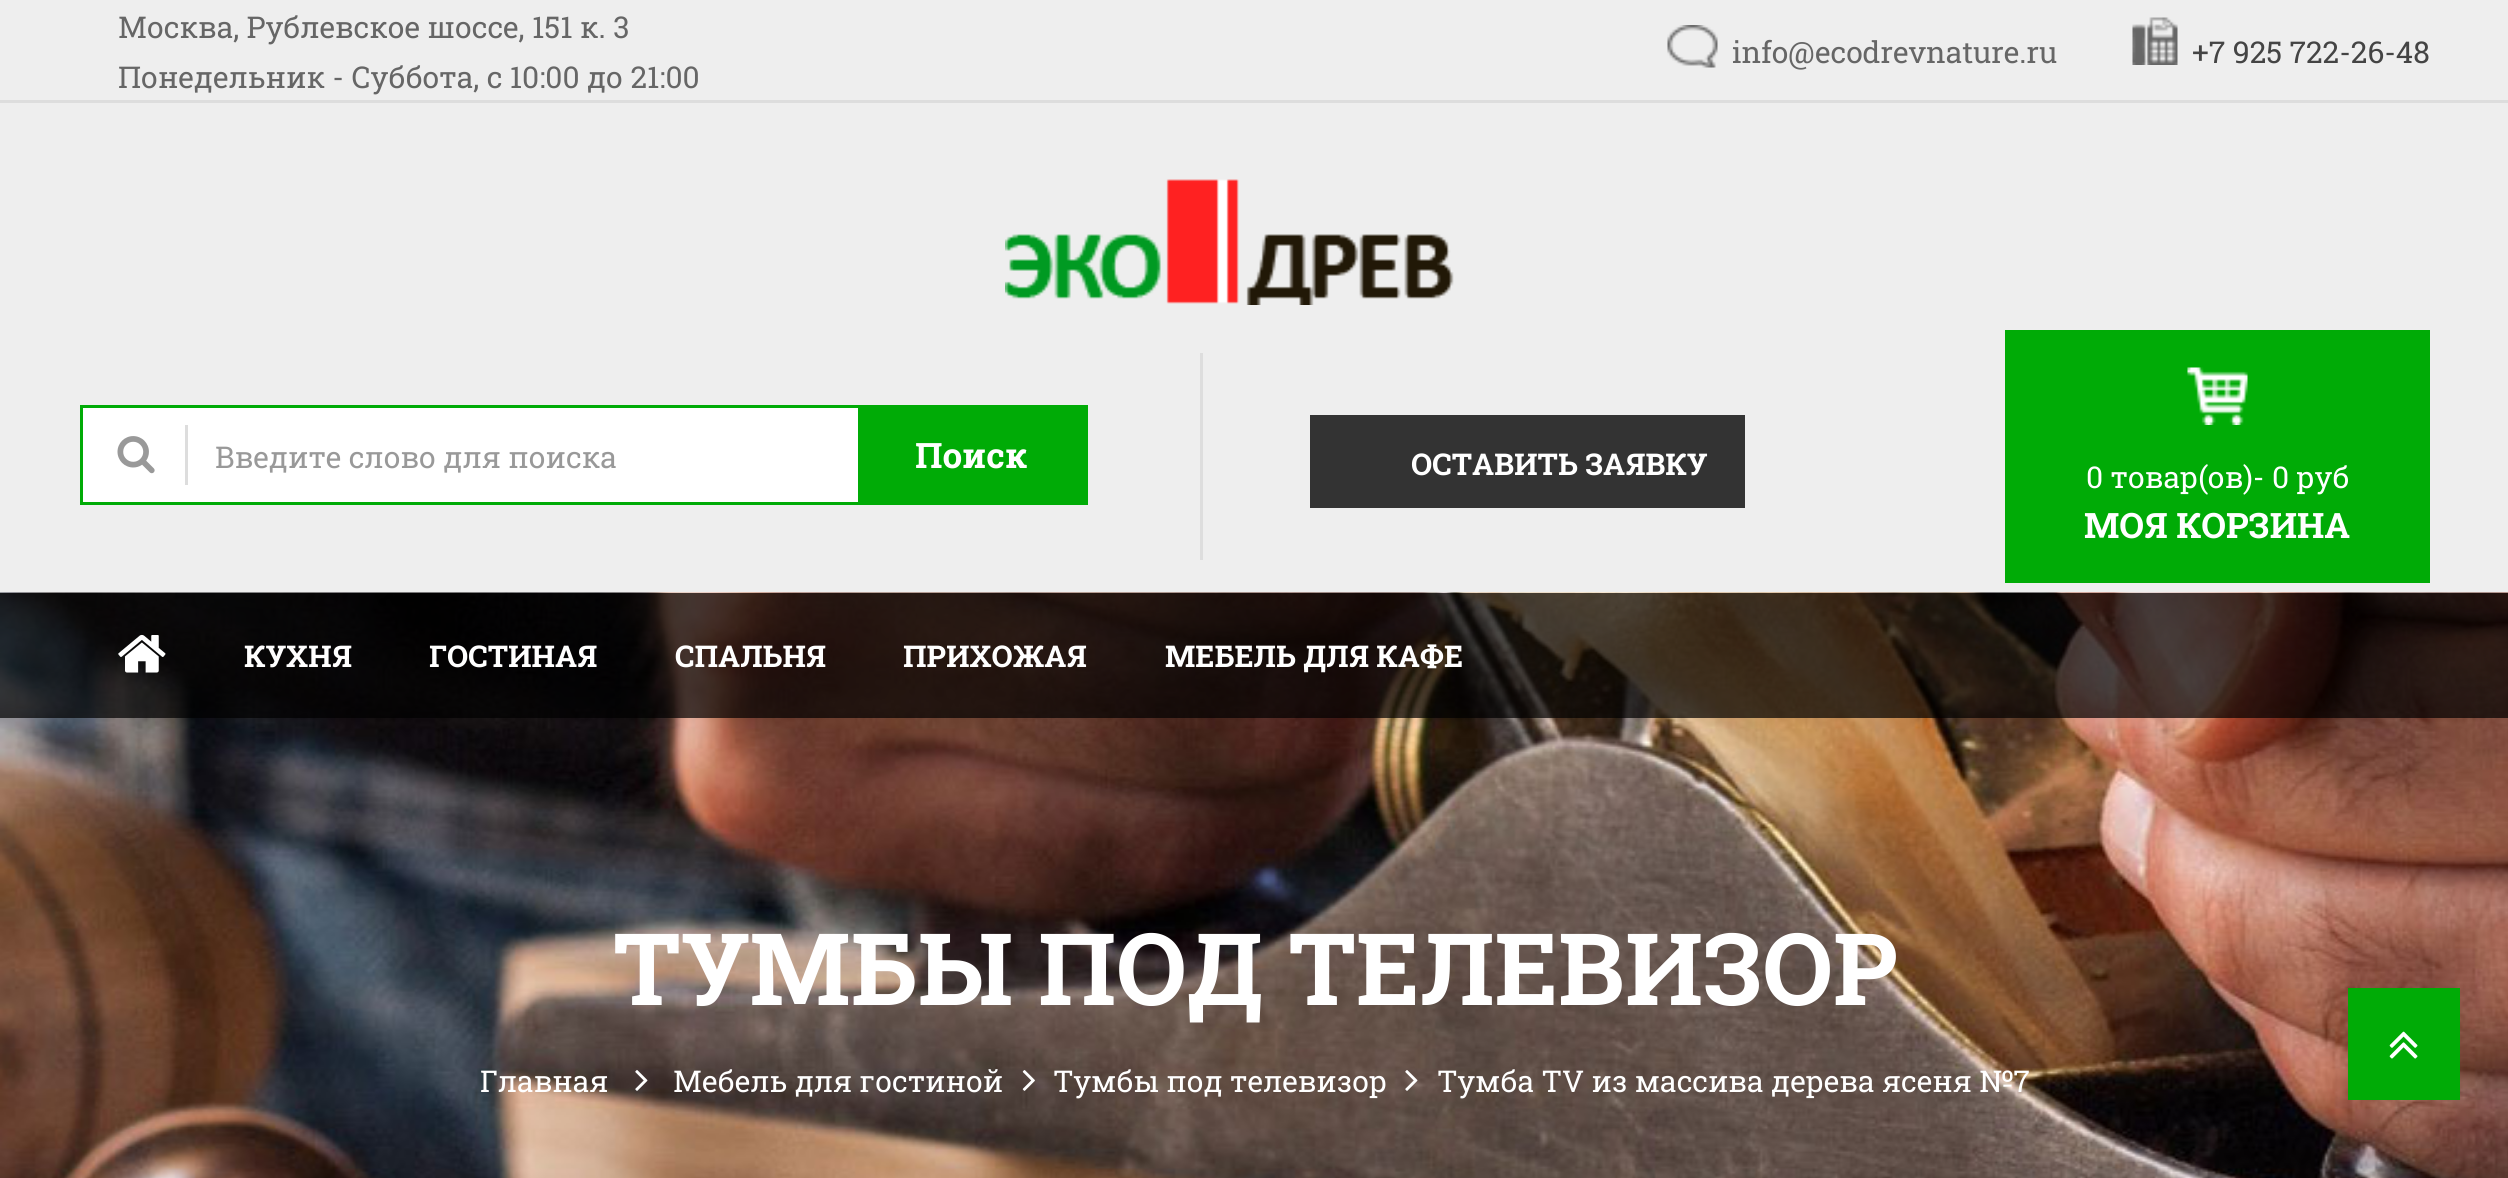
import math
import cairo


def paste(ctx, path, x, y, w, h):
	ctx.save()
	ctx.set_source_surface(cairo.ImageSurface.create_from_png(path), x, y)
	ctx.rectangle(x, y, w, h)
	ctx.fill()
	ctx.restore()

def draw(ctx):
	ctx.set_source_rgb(0.933, 0.933, 0.933)
	ctx.paint()
	ctx.set_source_rgb(0.867, 0.867, 0.867)
	ctx.rectangle(0, 100, 2508, 3)
	ctx.fill()
	ctx.select_font_face('Roboto Slab')
	ctx.set_font_size(30)
	ctx.set_source_rgb(0.4, 0.4, 0.4)
	ctx.move_to(118, 38)
	ctx.show_text('Москва, Рублевское шоссе, 151 к. 3')
	ctx.move_to(118, 88)
	ctx.show_text('Понедельник - Суббота, с 10:00 до 21:00')
	paste(ctx, 'media/1.png', 1667, 25, 51, 43)
	ctx.move_to(1732, 63)
	ctx.show_text('info@ecodrevnature.ru')
	paste(ctx, 'media/2.png', 2132, 17, 46, 48)
	ctx.set_source_rgb(0.267, 0.267, 0.267)
	ctx.move_to(2192, 63)
	ctx.show_text('+7 925 722-26-48')
	paste(ctx, 'media/3.png', 1005, 179, 449, 126)
	ctx.set_source_rgb(1, 1, 1)
	ctx.rectangle(83, 408, 775, 94)
	ctx.fill()
	ctx.rectangle(81.5, 406.5, 1005, 97)
	ctx.set_source_rgb(0, 0.671, 0.027)
	ctx.set_line_width(3)
	ctx.stroke()
	ctx.set_source_rgb(0.867, 0.867, 0.867)
	ctx.rectangle(185, 425, 3, 60)
	ctx.fill()
	paste(ctx, 'media/4.png', 117, 436, 38, 38)
	ctx.set_source_rgb(0.6, 0.6, 0.6)
	ctx.move_to(215, 468)
	ctx.show_text('Введите слово для поиска')
	ctx.set_source_rgb(0, 0.671, 0.027)
	ctx.rectangle(858, 408, 227, 94)
	ctx.fill()
	ctx.select_font_face('Roboto Slab', cairo.FONT_SLANT_NORMAL, cairo.FONT_WEIGHT_BOLD)
	ctx.set_font_size(35)
	ctx.set_source_rgb(1, 1, 1)
	ctx.move_to(915, 468)
	ctx.show_text('Поиск')
	ctx.set_source_rgb(0.867, 0.867, 0.867)
	ctx.rectangle(1200, 353, 3, 207)
	ctx.fill()
	ctx.set_source_rgb(0.2, 0.2, 0.2)
	ctx.rectangle(1310, 415, 435, 93)
	ctx.fill()
	ctx.set_font_size(30)
	ctx.set_source_rgb(1, 1, 1)
	ctx.move_to(1411, 475)
	ctx.show_text('ОСТАВИТЬ ЗАЯВКУ')
	ctx.set_source_rgb(0, 0.671, 0.027)
	ctx.rectangle(2005, 330, 425, 253)
	ctx.fill()
	paste(ctx, 'media/5.png', 2187, 367, 61, 58)
	ctx.select_font_face('Roboto Slab')
	ctx.set_source_rgb(1, 1, 1)
	ctx.move_to(2086, 488)
	ctx.show_text('0 товар(ов)- 0 руб')
	ctx.select_font_face('Roboto Slab', cairo.FONT_SLANT_NORMAL, cairo.FONT_WEIGHT_BOLD)
	ctx.set_font_size(35)
	ctx.move_to(2084, 538)
	ctx.show_text('МОЯ КОРЗИНА')
	paste(ctx, 'media/7.png', 0, 592, 2508, 586)
	ctx.set_source_rgba(0, 0, 0, 0.7)
	ctx.rectangle(0, 593, 2508, 125)
	ctx.fill()
	paste(ctx, 'media/6.png', 118, 634, 48, 39)
	ctx.set_font_size(30)
	ctx.set_source_rgb(1, 1, 1)
	for x, y, s in [
		(244, 667, 'КУХНЯ'),
		(429, 667, 'ГОСТИНАЯ'),
		(675, 667, 'СПАЛЬНЯ'),
		(903, 667, 'ПРИХОЖАЯ'),
		(1165, 667, 'МЕБЕЛЬ ДЛЯ КАФЕ'),
	]:
		ctx.move_to(x, y)
		ctx.show_text(s)
	ctx.set_font_size(100)
	ctx.move_to(613, 1005)
	ctx.show_text('ТУМБЫ ПОД ТЕЛЕВИЗОР')
	ctx.select_font_face('Roboto Slab')
	ctx.set_font_size(30)
	ctx.move_to(480, 1092)
	ctx.show_text('Главная')
	paste(ctx, 'media/8.png', 635, 1070, 13, 21)
	ctx.move_to(673, 1092)
	ctx.show_text('Мебель для гостиной')
	paste(ctx, 'media/9.png', 1022, 1070, 13, 21)
	ctx.move_to(1053, 1092)
	ctx.show_text('Тумбы под телевизор')
	paste(ctx, 'media/10.png', 1405, 1070, 13, 21)
	ctx.move_to(1437, 1092)
	ctx.show_text('Тумба TV из массива дерева ясеня №7')
	ctx.set_source_rgb(0, 0.671, 0.027)
	ctx.rectangle(2348, 988, 112, 112)
	ctx.fill()
	paste(ctx, 'media/11.png', 2389, 1031, 29, 28)


surface = cairo.ImageSurface(cairo.FORMAT_RGB24, 2508, 1178)
ctx = cairo.Context(surface)
options = cairo.FontOptions()
options.set_hint_metrics(cairo.HINT_METRICS_OFF)
options.set_hint_style(cairo.HINT_STYLE_NONE)
ctx.set_font_options(options)
ctx.set_miter_limit(4)
draw(ctx)
surface.write_to_png('image.png')
